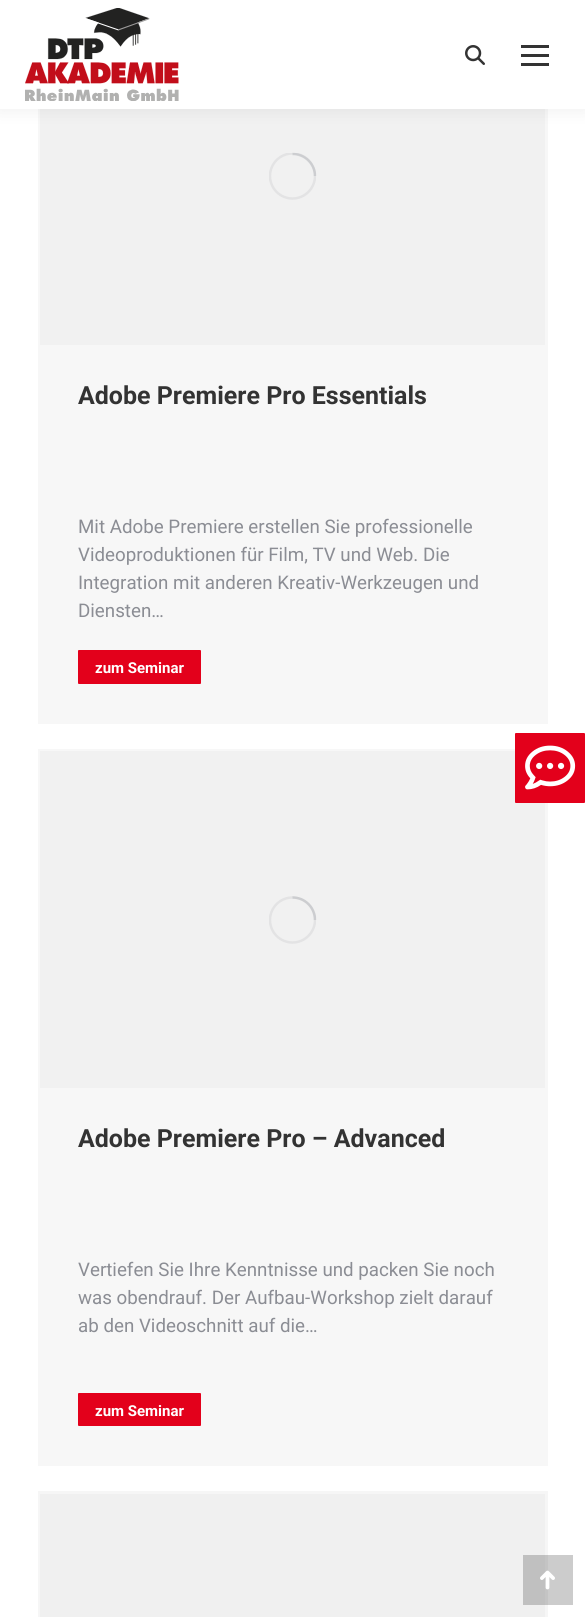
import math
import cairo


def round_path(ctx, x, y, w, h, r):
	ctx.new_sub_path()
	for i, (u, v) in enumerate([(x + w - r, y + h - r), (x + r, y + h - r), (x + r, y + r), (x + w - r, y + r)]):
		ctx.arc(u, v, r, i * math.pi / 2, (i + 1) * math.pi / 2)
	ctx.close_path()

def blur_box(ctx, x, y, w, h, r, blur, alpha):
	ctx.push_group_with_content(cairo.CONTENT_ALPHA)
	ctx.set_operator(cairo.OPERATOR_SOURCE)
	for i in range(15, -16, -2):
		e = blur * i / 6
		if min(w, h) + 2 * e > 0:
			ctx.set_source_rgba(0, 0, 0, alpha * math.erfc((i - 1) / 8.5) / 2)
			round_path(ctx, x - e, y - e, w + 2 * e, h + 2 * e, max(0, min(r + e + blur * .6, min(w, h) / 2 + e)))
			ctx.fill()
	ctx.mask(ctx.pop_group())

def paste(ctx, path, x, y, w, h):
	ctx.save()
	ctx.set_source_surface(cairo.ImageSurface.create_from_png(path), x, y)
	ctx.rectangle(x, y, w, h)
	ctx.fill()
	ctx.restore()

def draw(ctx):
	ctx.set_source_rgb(1, 1, 1)
	ctx.paint()
	ctx.set_source_rgb(0.8, 0.8, 0.8)
	ctx.rectangle(548, 1555, 25, 50)
	ctx.fill()
	ctx.set_source_rgb(0.965, 0.965, 0.965)
	ctx.rectangle(38, 109, 510, 615)
	ctx.fill()
	ctx.set_source_rgb(0.945, 0.945, 0.945)
	ctx.rectangle(40, 109, 505, 236)
	ctx.fill()
	ctx.set_source_rgb(0, 0, 0)
	blur_box(ctx, -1, -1, 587, 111, 0, 9.5, 0.07)
	ctx.set_source_rgb(1, 1, 1)
	ctx.rectangle(0, 0, 585, 109)
	ctx.fill()
	paste(ctx, 'media/1.png', 25, 8, 154, 93)
	paste(ctx, 'media/2.png', 465, 45, 20, 20)
	ctx.set_source_rgb(0.2, 0.2, 0.2)
	ctx.rectangle(521, 45, 28, 3)
	ctx.rectangle(521, 54, 28, 3)
	ctx.rectangle(521, 63, 28, 3)
	ctx.fill()
	ctx.save()
	ctx.rectangle(269, 153, 47, 47)
	ctx.clip()
	ctx.arc(292.5, 176, 22.5, 0, 2 * math.pi)
	ctx.set_source_rgb(0.89, 0.89, 0.894)
	ctx.set_line_width(2.5)
	ctx.stroke()
	ctx.restore()
	ctx.new_path()
	ctx.move_to(315, 176)
	ctx.curve_to(315, 164, 305, 154, 292.5, 154)
	ctx.set_source_rgba(0.545, 0.553, 0.58, 0.25)
	ctx.set_line_width(2.5)
	ctx.stroke()
	ctx.select_font_face('Roboto', cairo.FONT_SLANT_NORMAL, cairo.FONT_WEIGHT_BOLD)
	ctx.set_font_size(25)
	ctx.set_source_rgb(0.2, 0.2, 0.2)
	ctx.move_to(78, 404)
	ctx.show_text('Adobe Premiere Pro Essentials')
	ctx.select_font_face('Roboto')
	ctx.set_font_size(18.75)
	ctx.set_source_rgb(0.545, 0.553, 0.58)
	for x, y, s in [
		(78, 533, 'Mit Adobe Premiere erstellen Sie professionelle'),
		(78, 561, 'Videoproduktionen für Film, TV und Web. Die'),
		(78, 589, 'Integration mit anderen Kreativ-Werkzeugen und'),
		(78, 617, 'Diensten…'),
	]:
		ctx.move_to(x, y)
		ctx.show_text(s)
	ctx.set_source_rgb(0.89, 0, 0.106)
	round_path(ctx, 78, 650, 123, 34, 1)
	ctx.fill()
	ctx.select_font_face('Roboto', cairo.FONT_SLANT_NORMAL, cairo.FONT_WEIGHT_BOLD)
	ctx.set_font_size(15)
	ctx.set_source_rgb(1, 1, 1)
	ctx.move_to(95, 673)
	ctx.show_text('zum Seminar')
	ctx.set_source_rgb(0.965, 0.965, 0.965)
	ctx.rectangle(38, 749, 510, 717)
	ctx.fill()
	ctx.set_source_rgb(0.945, 0.945, 0.945)
	ctx.rectangle(40, 751, 505, 337)
	ctx.fill()
	ctx.save()
	ctx.rectangle(269, 896, 47, 48)
	ctx.clip()
	ctx.arc(292.5, 920, 22.5, 0, 2 * math.pi)
	ctx.set_source_rgb(0.89, 0.89, 0.894)
	ctx.stroke()
	ctx.restore()
	ctx.new_path()
	ctx.move_to(315, 920)
	ctx.curve_to(315, 907.5, 305, 897.5, 292.5, 897.5)
	ctx.set_source_rgba(0.545, 0.553, 0.58, 0.25)
	ctx.stroke()
	ctx.set_font_size(25)
	ctx.set_source_rgb(0.2, 0.2, 0.2)
	ctx.move_to(78, 1147)
	ctx.show_text('Adobe Premiere Pro – Advanced')
	ctx.select_font_face('Roboto')
	ctx.set_font_size(18.75)
	ctx.set_source_rgb(0.545, 0.553, 0.58)
	for x, y, s in [
		(78, 1276, 'Vertiefen Sie Ihre Kenntnisse und packen Sie noch'),
		(78, 1304, 'was obendrauf. Der Aufbau-Workshop zielt darauf'),
		(78, 1332, 'ab den Videoschnitt auf die…'),
	]:
		ctx.move_to(x, y)
		ctx.show_text(s)
	ctx.set_source_rgb(0.89, 0, 0.106)
	round_path(ctx, 78, 1393, 123, 33, 1)
	ctx.fill()
	ctx.select_font_face('Roboto', cairo.FONT_SLANT_NORMAL, cairo.FONT_WEIGHT_BOLD)
	ctx.set_font_size(15)
	ctx.set_source_rgb(1, 1, 1)
	ctx.move_to(95, 1416)
	ctx.show_text('zum Seminar')
	ctx.set_source_rgb(0.961, 0.961, 0.961)
	ctx.rectangle(38, 1491, 510, 126)
	ctx.fill()
	ctx.set_source_rgb(0.769, 0.769, 0.769)
	ctx.rectangle(545, 1555, 3, 50)
	ctx.fill()
	ctx.set_source_rgb(0.941, 0.941, 0.941)
	ctx.rectangle(40, 1494, 505, 123)
	ctx.fill()
	ctx.set_source_rgb(0.753, 0.753, 0.753)
	ctx.rectangle(523, 1555, 22, 50)
	ctx.fill()
	ctx.set_source_rgb(0.89, 0, 0.106)
	round_path(ctx, 515, 733, 70, 70, 1)
	ctx.fill()
	paste(ctx, 'media/3.png', 525, 745, 51, 45)
	paste(ctx, 'media/4.png', 540, 1570, 15, 20)


surface = cairo.ImageSurface(cairo.FORMAT_RGB24, 585, 1617)
ctx = cairo.Context(surface)
options = cairo.FontOptions()
options.set_hint_metrics(cairo.HINT_METRICS_OFF)
options.set_hint_style(cairo.HINT_STYLE_NONE)
ctx.set_font_options(options)
ctx.set_miter_limit(4)
draw(ctx)
surface.write_to_png('image.png')
